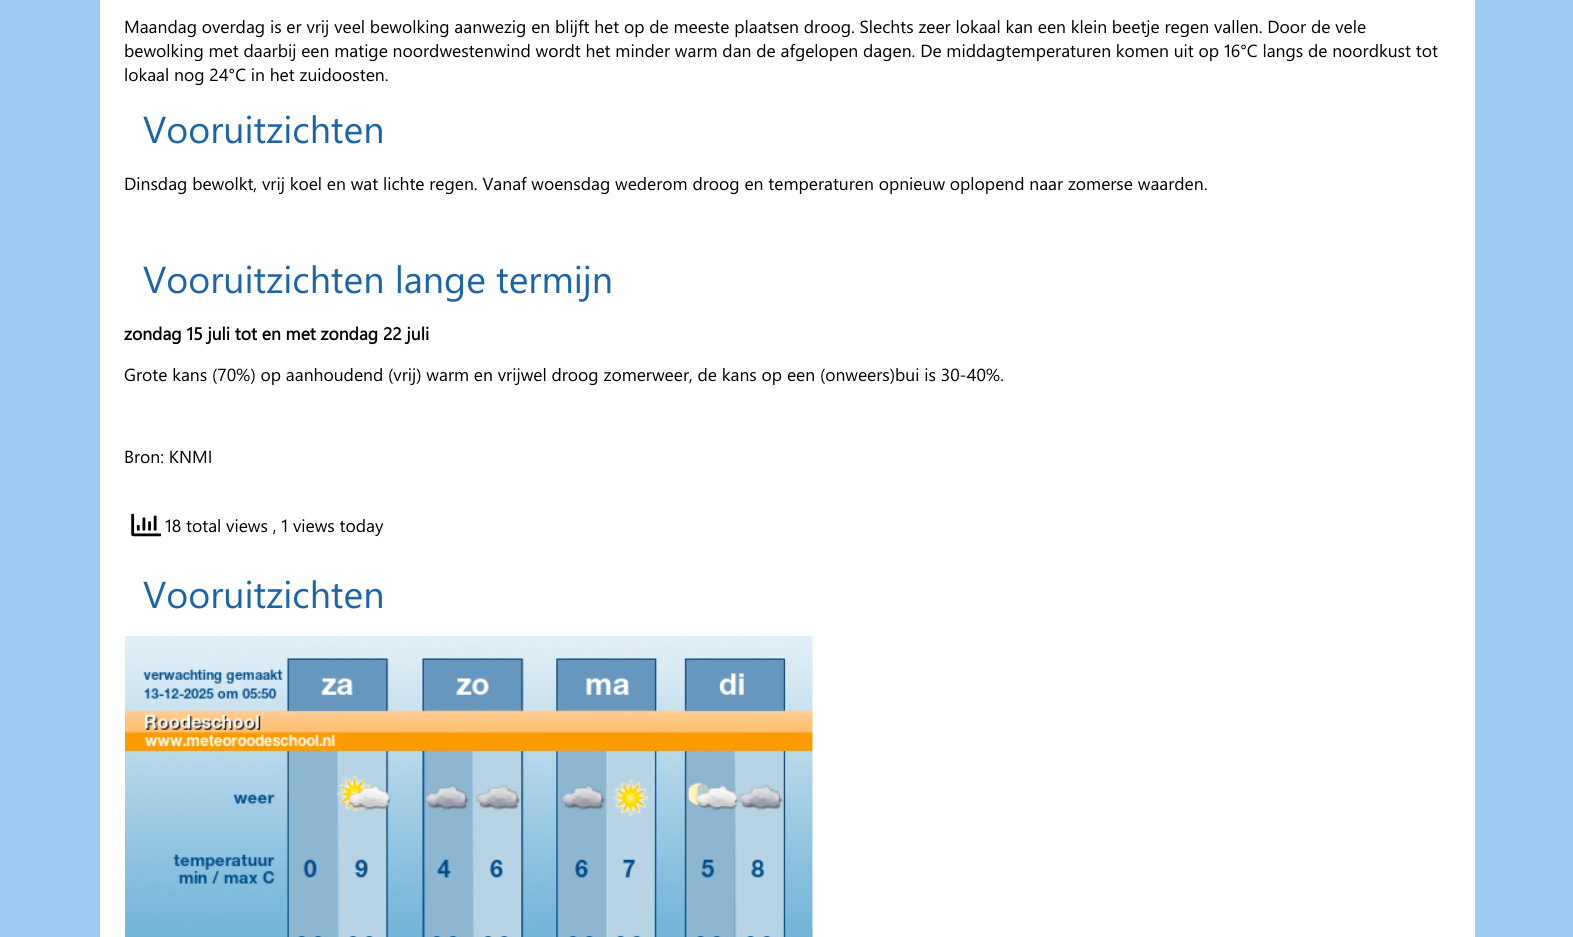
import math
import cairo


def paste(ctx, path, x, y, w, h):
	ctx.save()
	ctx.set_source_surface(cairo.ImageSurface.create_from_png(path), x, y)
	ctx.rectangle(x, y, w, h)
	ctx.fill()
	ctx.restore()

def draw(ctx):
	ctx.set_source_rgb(0.627, 0.796, 0.945)
	ctx.paint()
	ctx.set_source_rgb(1, 1, 1)
	ctx.rectangle(100, 0, 1375, 937)
	ctx.fill()
	ctx.select_font_face('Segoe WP')
	ctx.set_font_size(17.5)
	ctx.set_source_rgb(0, 0, 0)
	for x, y, s in [
		(124, 33, 'Maandag overdag is er vrij veel bewolking aanwezig en blijft het op de meeste plaatsen droog. Slechts zeer lokaal kan een klein beetje regen vallen. Door de vele'),
		(124, 57, 'bewolking met daarbij een matige noordwestenwind wordt het minder warm dan de afgelopen dagen. De middagtemperaturen komen uit op 16°C langs de noordkust tot'),
		(124, 81, 'lokaal nog 24°C in het zuidoosten.'),
	]:
		ctx.move_to(x, y)
		ctx.show_text(s)
	ctx.set_font_size(37.5)
	ctx.set_source_rgb(0.114, 0.392, 0.635)
	ctx.move_to(143, 143)
	ctx.show_text('Vooruitzichten')
	ctx.set_font_size(17.5)
	ctx.set_source_rgb(0, 0, 0)
	ctx.move_to(124, 190)
	ctx.show_text('Dinsdag bewolkt, vrij koel en wat lichte regen. Vanaf woensdag wederom droog en temperaturen opnieuw oplopend naar zomerse waarden.')
	ctx.set_font_size(37.5)
	ctx.set_source_rgb(0.114, 0.392, 0.635)
	ctx.move_to(143, 293)
	ctx.show_text('Vooruitzichten lange termijn')
	ctx.select_font_face('Segoe WP', cairo.FONT_SLANT_NORMAL, cairo.FONT_WEIGHT_BOLD)
	ctx.set_font_size(17.5)
	ctx.set_source_rgb(0, 0, 0)
	ctx.move_to(124, 340)
	ctx.show_text('zondag 15 juli tot en met zondag 22 juli')
	ctx.select_font_face('Segoe WP')
	ctx.move_to(124, 381)
	ctx.show_text('Grote kans (70%) op aanhoudend (vrij) warm en vrijwel droog zomerweer, de kans op een (onweers)bui is 30-40%.')
	ctx.move_to(124, 463)
	ctx.show_text('Bron: KNMI')
	paste(ctx, 'media/1.png', 131, 513, 30, 24)
	ctx.move_to(165, 532)
	ctx.show_text('18 total views , 1 views today')
	ctx.set_font_size(37.5)
	ctx.set_source_rgb(0.114, 0.392, 0.635)
	ctx.move_to(143, 608)
	ctx.show_text('Vooruitzichten')
	paste(ctx, 'media/2.png', 125, 636, 688, 301)


surface = cairo.ImageSurface(cairo.FORMAT_RGB24, 1573, 937)
ctx = cairo.Context(surface)
options = cairo.FontOptions()
options.set_hint_metrics(cairo.HINT_METRICS_OFF)
options.set_hint_style(cairo.HINT_STYLE_NONE)
ctx.set_font_options(options)
ctx.set_miter_limit(4)
draw(ctx)
surface.write_to_png('image.png')
